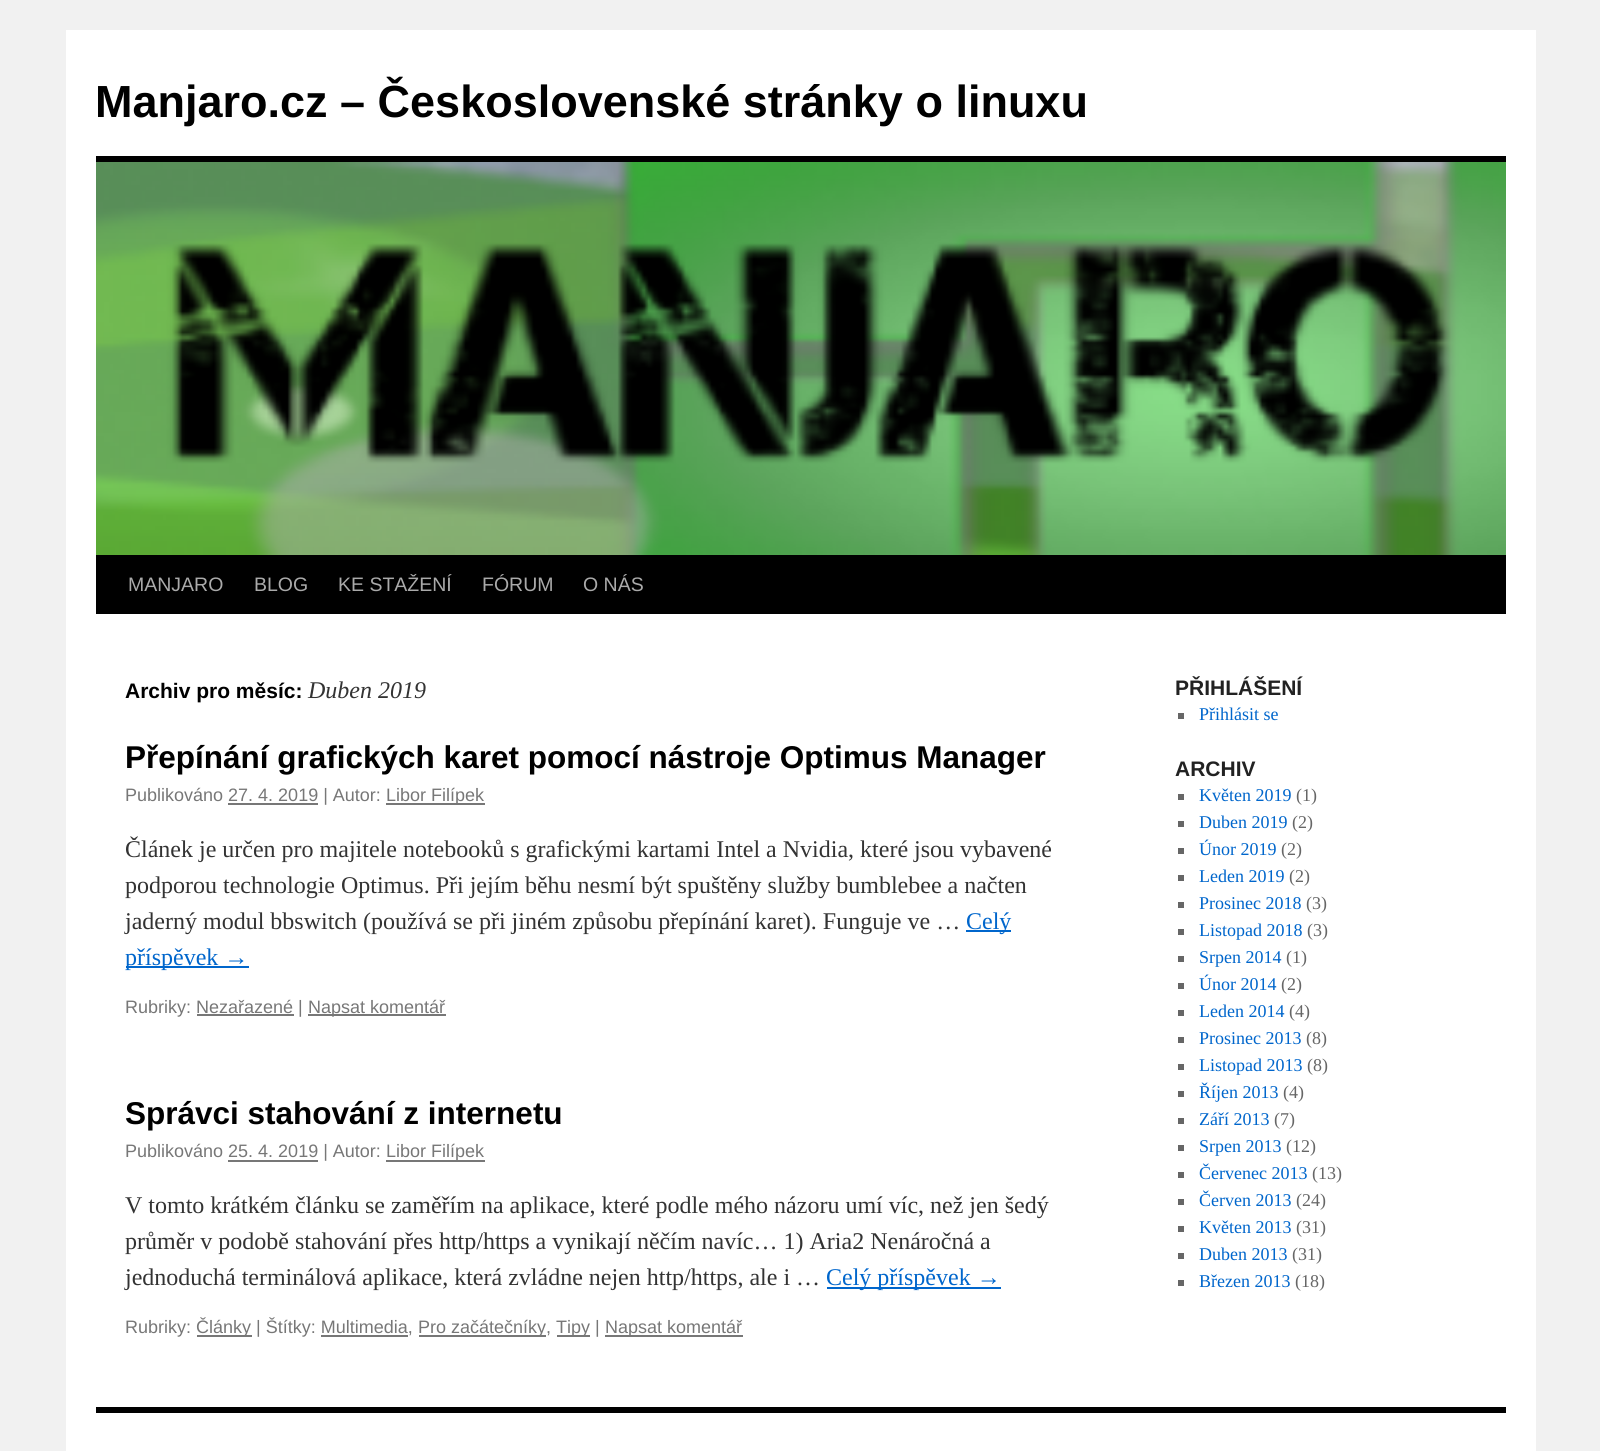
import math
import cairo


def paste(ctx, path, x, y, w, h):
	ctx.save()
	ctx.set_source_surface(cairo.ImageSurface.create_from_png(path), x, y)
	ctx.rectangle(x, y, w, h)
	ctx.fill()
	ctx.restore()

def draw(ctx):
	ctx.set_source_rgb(0.945, 0.945, 0.945)
	ctx.paint()
	ctx.set_source_rgb(1, 1, 1)
	ctx.rectangle(66, 30, 1470, 1421)
	ctx.fill()
	ctx.select_font_face('Liberation Sans', cairo.FONT_SLANT_NORMAL, cairo.FONT_WEIGHT_BOLD)
	ctx.set_font_size(45)
	ctx.set_source_rgb(0, 0, 0)
	ctx.move_to(95, 117)
	ctx.show_text('Manjaro.cz – Československé stránky o linuxu')
	ctx.rectangle(96, 156, 1410, 6)
	ctx.fill()
	ctx.rectangle(96, 555, 1410, 59)
	ctx.fill()
	paste(ctx, 'media/1.png', 96, 162, 1410, 393)
	ctx.select_font_face('Liberation Sans')
	ctx.set_font_size(19.5)
	ctx.set_source_rgb(0.667, 0.667, 0.667)
	for x, y, s in [
		(128, 591, 'MANJARO'),
		(254, 591, 'BLOG'),
		(338, 591, 'KE STAŽENÍ'),
		(482, 591, 'FÓRUM'),
		(583, 591, 'O NÁS'),
	]:
		ctx.move_to(x, y)
		ctx.show_text(s)
	ctx.select_font_face('Liberation Sans', cairo.FONT_SLANT_NORMAL, cairo.FONT_WEIGHT_BOLD)
	ctx.set_font_size(21)
	ctx.set_source_rgb(0, 0, 0)
	ctx.move_to(125, 698)
	ctx.show_text('Archiv pro měsíc:')
	ctx.select_font_face('Liberation Serif', cairo.FONT_SLANT_ITALIC)
	ctx.set_font_size(24)
	ctx.set_source_rgb(0.2, 0.2, 0.2)
	ctx.move_to(308, 698)
	ctx.show_text('Duben 2019')
	ctx.select_font_face('Liberation Sans', cairo.FONT_SLANT_NORMAL, cairo.FONT_WEIGHT_BOLD)
	ctx.set_font_size(31.5)
	ctx.set_source_rgb(0, 0, 0)
	ctx.move_to(125, 768)
	ctx.show_text('Přepínání grafických karet pomocí nástroje Optimus Manager')
	ctx.select_font_face('Liberation Sans')
	ctx.set_font_size(18)
	ctx.set_source_rgb(0.467, 0.467, 0.467)
	ctx.move_to(125, 801)
	ctx.show_text('Publikováno 27. 4. 2019 | Autor:')
	ctx.rectangle(386, 803, 99, 2)
	ctx.fill()
	ctx.move_to(386, 801)
	ctx.show_text('Libor Filípek')
	ctx.rectangle(228, 803, 90, 2)
	ctx.fill()
	ctx.select_font_face('Liberation Serif')
	ctx.set_font_size(24)
	ctx.set_source_rgb(0.2, 0.2, 0.2)
	for x, y, s in [
		(125, 857, 'Článek je určen pro majitele notebooků s grafickými kartami Intel a Nvidia, které jsou vybavené'),
		(125, 893, 'podporou technologie Optimus. Při jejím běhu nesmí být spuštěny služby bumblebee a načten'),
		(125, 929, 'jaderný modul bbswitch (používá se při jiném způsobu přepínání karet). Funguje ve …'),
	]:
		ctx.move_to(x, y)
		ctx.show_text(s)
	ctx.set_source_rgb(0, 0.4, 0.8)
	ctx.rectangle(966, 930, 45, 2)
	ctx.fill()
	ctx.move_to(966, 929)
	ctx.show_text('Celý')
	ctx.rectangle(126, 966, 123, 2)
	ctx.fill()
	ctx.move_to(125, 965)
	ctx.show_text('příspěvek →')
	ctx.select_font_face('Liberation Sans')
	ctx.set_font_size(18)
	ctx.set_source_rgb(0.467, 0.467, 0.467)
	ctx.move_to(125, 1013)
	ctx.show_text('Rubriky: Nezařazené |')
	ctx.rectangle(197, 1014, 97, 2)
	ctx.fill()
	ctx.rectangle(308, 1014, 138, 2)
	ctx.fill()
	ctx.move_to(308, 1013)
	ctx.show_text('Napsat komentář')
	ctx.select_font_face('Liberation Sans', cairo.FONT_SLANT_NORMAL, cairo.FONT_WEIGHT_BOLD)
	ctx.set_font_size(31.5)
	ctx.set_source_rgb(0, 0, 0)
	ctx.move_to(125, 1124)
	ctx.show_text('Správci stahování z internetu')
	ctx.select_font_face('Liberation Sans')
	ctx.set_font_size(18)
	ctx.set_source_rgb(0.467, 0.467, 0.467)
	ctx.move_to(125, 1157)
	ctx.show_text('Publikováno 25. 4. 2019 | Autor:')
	ctx.rectangle(386, 1160, 99, 2)
	ctx.fill()
	ctx.move_to(386, 1157)
	ctx.show_text('Libor Filípek')
	ctx.rectangle(228, 1160, 90, 2)
	ctx.fill()
	ctx.select_font_face('Liberation Serif')
	ctx.set_font_size(24)
	ctx.set_source_rgb(0.2, 0.2, 0.2)
	for x, y, s in [
		(125, 1213, 'V tomto krátkém článku se zaměřím na aplikace, které podle mého názoru umí víc, než jen šedý'),
		(125, 1249, 'průměr v podobě stahování přes http/https a vynikají něčím navíc… 1) Aria2 Nenáročná a'),
		(125, 1285, 'jednoduchá terminálová aplikace, která zvládne nejen http/https, ale i …'),
	]:
		ctx.move_to(x, y)
		ctx.show_text(s)
	ctx.set_source_rgb(0, 0.4, 0.8)
	ctx.rectangle(827, 1287, 174, 2)
	ctx.fill()
	ctx.move_to(826, 1285)
	ctx.show_text('Celý příspěvek →')
	ctx.select_font_face('Liberation Sans')
	ctx.set_font_size(18)
	ctx.set_source_rgb(0.467, 0.467, 0.467)
	ctx.move_to(125, 1333)
	ctx.show_text('Rubriky:')
	ctx.rectangle(197, 1335, 55, 2)
	ctx.fill()
	ctx.move_to(196, 1333)
	ctx.show_text('Články | Štítky: Multimedia,')
	ctx.rectangle(419, 1335, 127, 2)
	ctx.fill()
	ctx.move_to(418, 1333)
	ctx.show_text('Pro začátečníky,')
	ctx.rectangle(321, 1335, 87, 2)
	ctx.fill()
	ctx.rectangle(557, 1335, 33, 2)
	ctx.fill()
	ctx.move_to(556, 1333)
	ctx.show_text('Tipy |')
	ctx.rectangle(605, 1335, 138, 2)
	ctx.fill()
	ctx.move_to(605, 1333)
	ctx.show_text('Napsat komentář')
	ctx.select_font_face('Liberation Sans', cairo.FONT_SLANT_NORMAL, cairo.FONT_WEIGHT_BOLD)
	ctx.set_font_size(21)
	ctx.set_source_rgb(0.133, 0.133, 0.133)
	ctx.move_to(1175, 695)
	ctx.show_text('PŘIHLÁŠENÍ')
	ctx.set_source_rgb(0.4, 0.4, 0.4)
	ctx.rectangle(1178, 713, 6, 6)
	ctx.fill()
	ctx.select_font_face('Liberation Serif')
	ctx.set_font_size(18)
	ctx.set_source_rgb(0, 0.4, 0.8)
	ctx.move_to(1199, 720)
	ctx.show_text('Přihlásit se')
	ctx.select_font_face('Liberation Sans', cairo.FONT_SLANT_NORMAL, cairo.FONT_WEIGHT_BOLD)
	ctx.set_font_size(21)
	ctx.set_source_rgb(0.133, 0.133, 0.133)
	ctx.move_to(1175, 776)
	ctx.show_text('ARCHIV')
	ctx.set_source_rgb(0.4, 0.4, 0.4)
	ctx.rectangle(1178, 794, 6, 6)
	ctx.fill()
	ctx.select_font_face('Liberation Serif')
	ctx.set_font_size(18)
	ctx.set_source_rgb(0, 0.4, 0.8)
	ctx.move_to(1199, 801)
	ctx.show_text('Květen 2019')
	ctx.set_source_rgb(0.4, 0.4, 0.4)
	ctx.move_to(1296, 801)
	ctx.show_text('(1)')
	ctx.rectangle(1178, 821, 6, 6)
	ctx.fill()
	ctx.set_source_rgb(0, 0.4, 0.8)
	ctx.move_to(1199, 828)
	ctx.show_text('Duben 2019')
	ctx.set_source_rgb(0.4, 0.4, 0.4)
	ctx.move_to(1292, 828)
	ctx.show_text('(2)')
	ctx.rectangle(1178, 848, 6, 6)
	ctx.fill()
	ctx.set_source_rgb(0, 0.4, 0.8)
	ctx.move_to(1199, 855)
	ctx.show_text('Únor 2019')
	ctx.set_source_rgb(0.4, 0.4, 0.4)
	ctx.move_to(1281, 855)
	ctx.show_text('(2)')
	ctx.rectangle(1178, 875, 6, 6)
	ctx.fill()
	ctx.set_source_rgb(0, 0.4, 0.8)
	ctx.move_to(1199, 882)
	ctx.show_text('Leden 2019')
	ctx.set_source_rgb(0.4, 0.4, 0.4)
	ctx.move_to(1289, 882)
	ctx.show_text('(2)')
	ctx.rectangle(1178, 902, 6, 6)
	ctx.fill()
	ctx.set_source_rgb(0, 0.4, 0.8)
	ctx.move_to(1199, 909)
	ctx.show_text('Prosinec 2018')
	ctx.set_source_rgb(0.4, 0.4, 0.4)
	ctx.move_to(1306, 909)
	ctx.show_text('(3)')
	ctx.rectangle(1178, 929, 6, 6)
	ctx.fill()
	ctx.set_source_rgb(0, 0.4, 0.8)
	ctx.move_to(1199, 936)
	ctx.show_text('Listopad 2018')
	ctx.set_source_rgb(0.4, 0.4, 0.4)
	ctx.move_to(1307, 936)
	ctx.show_text('(3)')
	ctx.rectangle(1178, 956, 6, 6)
	ctx.fill()
	ctx.set_source_rgb(0, 0.4, 0.8)
	ctx.move_to(1199, 963)
	ctx.show_text('Srpen 2014')
	ctx.set_source_rgb(0.4, 0.4, 0.4)
	ctx.move_to(1286, 963)
	ctx.show_text('(1)')
	ctx.rectangle(1178, 983, 6, 6)
	ctx.fill()
	ctx.set_source_rgb(0, 0.4, 0.8)
	ctx.move_to(1199, 990)
	ctx.show_text('Únor 2014')
	ctx.set_source_rgb(0.4, 0.4, 0.4)
	ctx.move_to(1281, 990)
	ctx.show_text('(2)')
	ctx.rectangle(1178, 1010, 6, 6)
	ctx.fill()
	ctx.set_source_rgb(0, 0.4, 0.8)
	ctx.move_to(1199, 1017)
	ctx.show_text('Leden 2014')
	ctx.set_source_rgb(0.4, 0.4, 0.4)
	ctx.move_to(1289, 1017)
	ctx.show_text('(4)')
	ctx.rectangle(1178, 1037, 6, 6)
	ctx.fill()
	ctx.set_source_rgb(0, 0.4, 0.8)
	ctx.move_to(1199, 1044)
	ctx.show_text('Prosinec 2013')
	ctx.set_source_rgb(0.4, 0.4, 0.4)
	ctx.move_to(1306, 1044)
	ctx.show_text('(8)')
	ctx.rectangle(1178, 1064, 6, 6)
	ctx.fill()
	ctx.set_source_rgb(0, 0.4, 0.8)
	ctx.move_to(1199, 1071)
	ctx.show_text('Listopad 2013')
	ctx.set_source_rgb(0.4, 0.4, 0.4)
	ctx.move_to(1307, 1071)
	ctx.show_text('(8)')
	ctx.rectangle(1178, 1091, 6, 6)
	ctx.fill()
	ctx.set_source_rgb(0, 0.4, 0.8)
	ctx.move_to(1199, 1098)
	ctx.show_text('Říjen 2013')
	ctx.set_source_rgb(0.4, 0.4, 0.4)
	ctx.move_to(1283, 1098)
	ctx.show_text('(4)')
	ctx.rectangle(1178, 1118, 6, 6)
	ctx.fill()
	ctx.set_source_rgb(0, 0.4, 0.8)
	ctx.move_to(1199, 1125)
	ctx.show_text('Září 2013')
	ctx.set_source_rgb(0.4, 0.4, 0.4)
	ctx.move_to(1274, 1125)
	ctx.show_text('(7)')
	ctx.rectangle(1178, 1145, 6, 6)
	ctx.fill()
	ctx.set_source_rgb(0, 0.4, 0.8)
	ctx.move_to(1199, 1152)
	ctx.show_text('Srpen 2013')
	ctx.set_source_rgb(0.4, 0.4, 0.4)
	ctx.move_to(1286, 1152)
	ctx.show_text('(12)')
	ctx.rectangle(1178, 1172, 6, 6)
	ctx.fill()
	ctx.set_source_rgb(0, 0.4, 0.8)
	ctx.move_to(1199, 1179)
	ctx.show_text('Červenec 2013')
	ctx.set_source_rgb(0.4, 0.4, 0.4)
	ctx.move_to(1312, 1179)
	ctx.show_text('(13)')
	ctx.rectangle(1178, 1199, 6, 6)
	ctx.fill()
	ctx.set_source_rgb(0, 0.4, 0.8)
	ctx.move_to(1199, 1206)
	ctx.show_text('Červen 2013')
	ctx.set_source_rgb(0.4, 0.4, 0.4)
	ctx.move_to(1296, 1206)
	ctx.show_text('(24)')
	ctx.rectangle(1178, 1226, 6, 6)
	ctx.fill()
	ctx.set_source_rgb(0, 0.4, 0.8)
	ctx.move_to(1199, 1233)
	ctx.show_text('Květen 2013')
	ctx.set_source_rgb(0.4, 0.4, 0.4)
	ctx.move_to(1296, 1233)
	ctx.show_text('(31)')
	ctx.rectangle(1178, 1253, 6, 6)
	ctx.fill()
	ctx.set_source_rgb(0, 0.4, 0.8)
	ctx.move_to(1199, 1260)
	ctx.show_text('Duben 2013')
	ctx.set_source_rgb(0.4, 0.4, 0.4)
	ctx.move_to(1292, 1260)
	ctx.show_text('(31)')
	ctx.rectangle(1178, 1280, 6, 6)
	ctx.fill()
	ctx.set_source_rgb(0, 0.4, 0.8)
	ctx.move_to(1199, 1287)
	ctx.show_text('Březen 2013')
	ctx.set_source_rgb(0.4, 0.4, 0.4)
	ctx.move_to(1295, 1287)
	ctx.show_text('(18)')
	ctx.set_source_rgb(0, 0, 0)
	ctx.rectangle(96, 1407, 1410, 6)
	ctx.fill()


surface = cairo.ImageSurface(cairo.FORMAT_RGB24, 1600, 1451)
ctx = cairo.Context(surface)
options = cairo.FontOptions()
options.set_hint_metrics(cairo.HINT_METRICS_OFF)
options.set_hint_style(cairo.HINT_STYLE_NONE)
ctx.set_font_options(options)
ctx.set_miter_limit(4)
draw(ctx)
surface.write_to_png('image.png')
